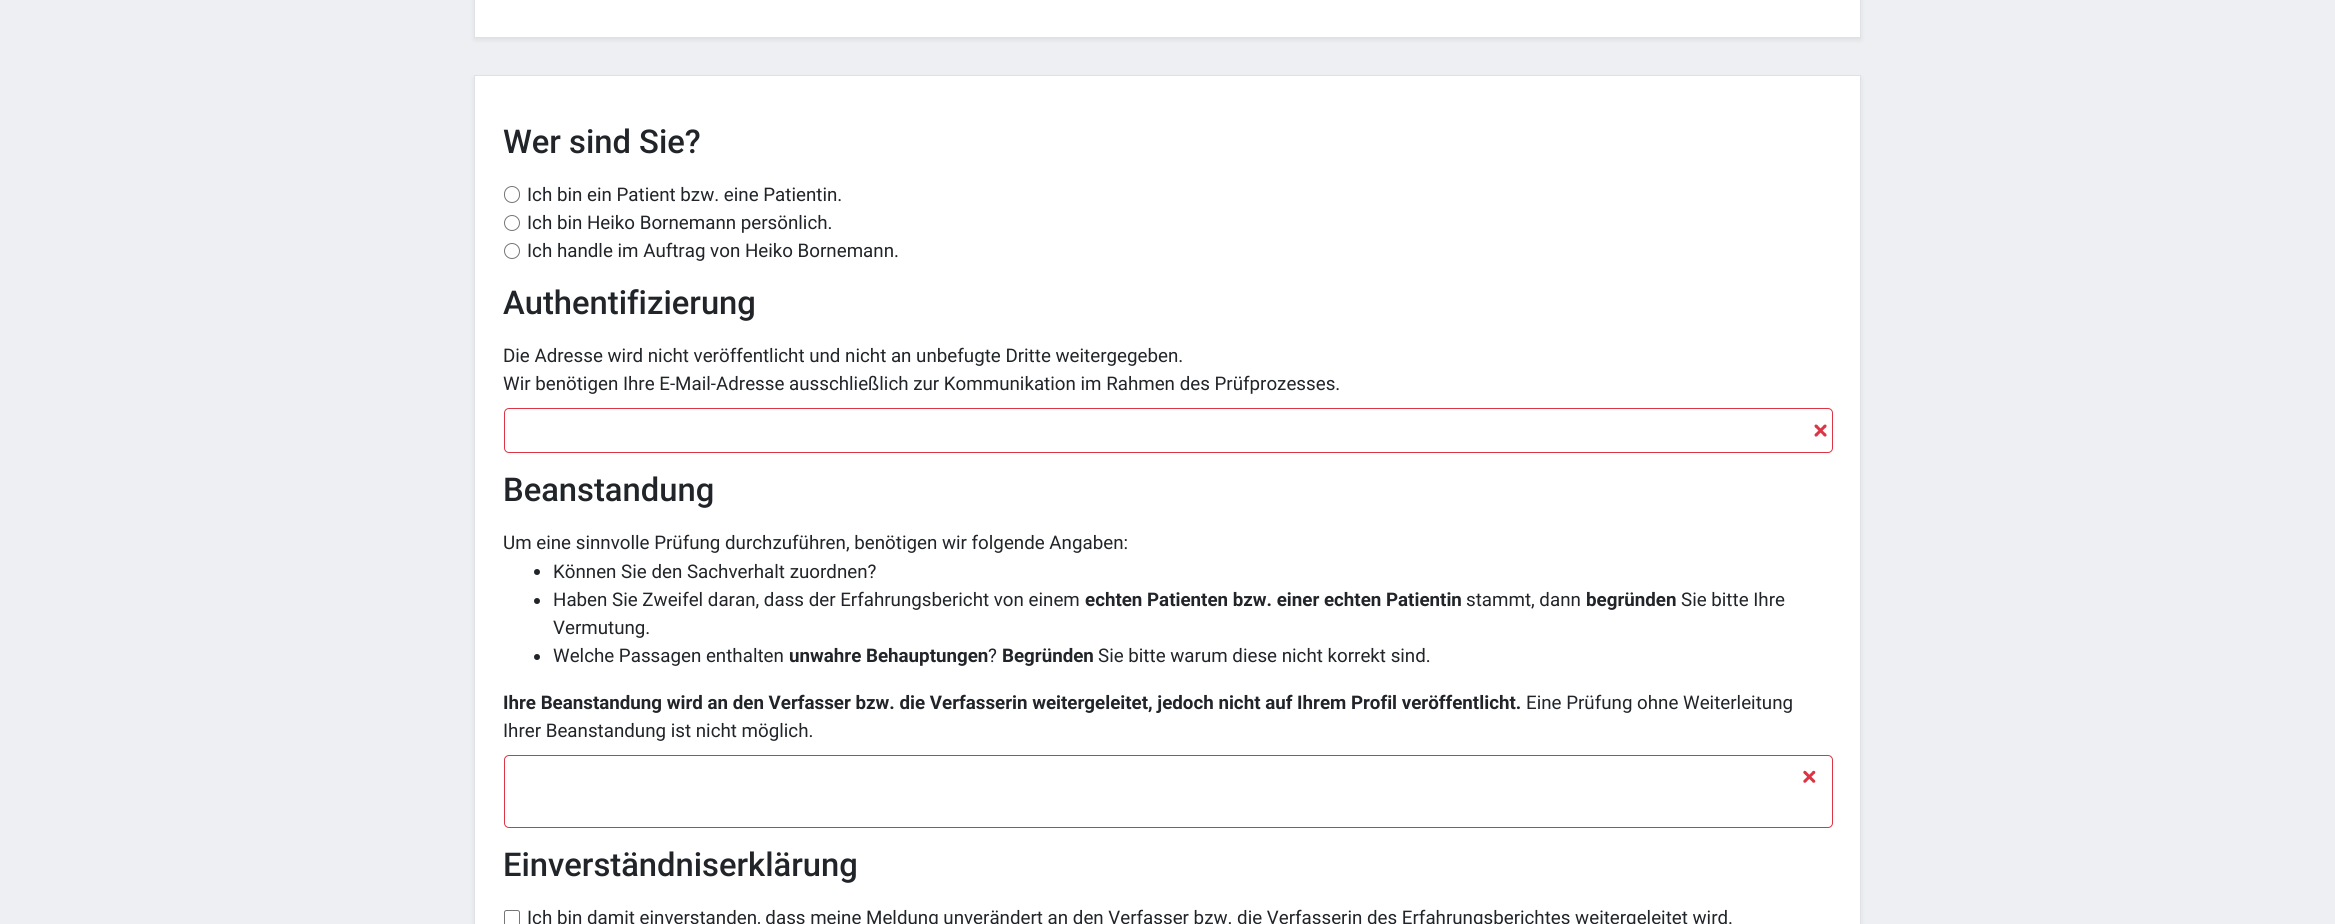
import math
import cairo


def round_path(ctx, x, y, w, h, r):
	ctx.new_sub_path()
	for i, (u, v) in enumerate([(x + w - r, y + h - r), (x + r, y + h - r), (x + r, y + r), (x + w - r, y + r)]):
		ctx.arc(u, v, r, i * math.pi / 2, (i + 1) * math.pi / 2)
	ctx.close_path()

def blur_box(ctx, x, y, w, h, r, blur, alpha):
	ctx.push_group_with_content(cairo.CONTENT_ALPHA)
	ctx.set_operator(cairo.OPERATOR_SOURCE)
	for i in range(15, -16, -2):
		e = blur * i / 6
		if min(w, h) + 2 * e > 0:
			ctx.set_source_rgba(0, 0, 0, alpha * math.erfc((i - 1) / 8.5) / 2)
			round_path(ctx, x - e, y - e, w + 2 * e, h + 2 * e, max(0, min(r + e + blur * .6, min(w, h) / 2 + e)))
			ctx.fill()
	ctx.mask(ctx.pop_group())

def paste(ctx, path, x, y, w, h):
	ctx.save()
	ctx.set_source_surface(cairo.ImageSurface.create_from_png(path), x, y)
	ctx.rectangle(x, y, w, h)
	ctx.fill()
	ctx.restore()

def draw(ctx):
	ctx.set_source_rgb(0.929, 0.937, 0.949)
	ctx.paint()
	ctx.set_source_rgb(0, 0, 0)
	blur_box(ctx, 474, -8, 1387, 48, 0, 2.5, 0.07)
	ctx.set_source_rgb(1, 1, 1)
	ctx.rectangle(474.5, -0.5, 1386, 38)
	ctx.fill_preserve()
	ctx.set_source_rgb(0.871, 0.886, 0.902)
	ctx.set_line_width(1)
	ctx.stroke()
	ctx.set_source_rgb(0, 0, 0)
	blur_box(ctx, 474, 78, 1387, 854, 0, 2.5, 0.07)
	ctx.set_source_rgb(1, 1, 1)
	ctx.rectangle(474.5, 75.5, 1386, 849)
	ctx.fill_preserve()
	ctx.set_source_rgb(0.871, 0.886, 0.902)
	ctx.stroke()
	ctx.select_font_face('Roboto Medium')
	ctx.set_font_size(32.75)
	ctx.set_source_rgb(0.129, 0.145, 0.161)
	ctx.move_to(503, 153)
	ctx.show_text('Wer sind Sie?')
	round_path(ctx, 504.5, 186.5, 15, 16, 7.5)
	ctx.set_source_rgb(0.463, 0.463, 0.463)
	ctx.stroke()
	ctx.select_font_face('Roboto')
	ctx.set_font_size(18.75)
	ctx.set_source_rgb(0.129, 0.145, 0.161)
	ctx.move_to(527, 201)
	ctx.show_text('Ich bin ein Patient bzw. eine Patientin.')
	ctx.new_path()
	ctx.arc(512, 223, 7.5, 0, 2 * math.pi)
	ctx.set_source_rgb(0.463, 0.463, 0.463)
	ctx.stroke()
	ctx.set_source_rgb(0.129, 0.145, 0.161)
	ctx.move_to(527, 229)
	ctx.show_text('Ich bin Heiko Bornemann persönlich.')
	ctx.new_path()
	ctx.arc(512, 251, 7.5, 0, 2 * math.pi)
	ctx.set_source_rgb(0.463, 0.463, 0.463)
	ctx.stroke()
	ctx.set_source_rgb(0.129, 0.145, 0.161)
	ctx.move_to(527, 257)
	ctx.show_text('Ich handle im Auftrag von Heiko Bornemann.')
	ctx.select_font_face('Roboto Medium')
	ctx.set_font_size(32.75)
	ctx.move_to(503, 314)
	ctx.show_text('Authentifizierung')
	ctx.select_font_face('Roboto')
	ctx.set_font_size(18.75)
	ctx.move_to(503, 362)
	ctx.show_text('Die Adresse wird nicht veröffentlicht und nicht an unbefugte Dritte weitergegeben.')
	ctx.move_to(503, 390)
	ctx.show_text('Wir benötigen Ihre E-Mail-Adresse ausschließlich zur Kommunikation im Rahmen des Prüfprozesses.')
	paste(ctx, 'media/1.png', 1814, 424, 13, 13)
	round_path(ctx, 504.5, 408.5, 1328, 44, 4.5)
	ctx.set_source_rgb(0.863, 0.208, 0.271)
	ctx.stroke()
	ctx.select_font_face('Roboto Medium')
	ctx.set_font_size(32.75)
	ctx.set_source_rgb(0.129, 0.145, 0.161)
	ctx.move_to(503, 501)
	ctx.show_text('Beanstandung')
	ctx.select_font_face('Roboto')
	ctx.set_font_size(18.75)
	ctx.move_to(503, 549)
	ctx.show_text('Um eine sinnvolle Prüfung durchzuführen, benötigen wir folgende Angaben:')
	ctx.new_path()
	ctx.arc(537, 572, 3, 0, 2 * math.pi)
	ctx.fill()
	ctx.move_to(553, 578)
	ctx.show_text('Können Sie den Sachverhalt zuordnen?')
	ctx.new_path()
	ctx.arc(537, 601, 3, 0, 2 * math.pi)
	ctx.fill()
	ctx.move_to(553, 606)
	ctx.show_text('Haben Sie Zweifel daran, dass der Erfahrungsbericht von einem')
	ctx.select_font_face('Roboto', cairo.FONT_SLANT_NORMAL, cairo.FONT_WEIGHT_BOLD)
	ctx.move_to(1085, 606)
	ctx.show_text('echten Patienten bzw. einer echten Patientin')
	ctx.select_font_face('Roboto')
	ctx.move_to(1466, 606)
	ctx.show_text('stammt, dann')
	ctx.select_font_face('Roboto', cairo.FONT_SLANT_NORMAL, cairo.FONT_WEIGHT_BOLD)
	ctx.move_to(1586, 606)
	ctx.show_text('begründen')
	ctx.select_font_face('Roboto')
	ctx.move_to(1681, 606)
	ctx.show_text('Sie bitte Ihre')
	ctx.move_to(553, 634)
	ctx.show_text('Vermutung.')
	ctx.new_path()
	ctx.arc(537, 657, 3, 0, 2 * math.pi)
	ctx.fill()
	ctx.move_to(553, 662)
	ctx.show_text('Welche Passagen enthalten')
	ctx.select_font_face('Roboto', cairo.FONT_SLANT_NORMAL, cairo.FONT_WEIGHT_BOLD)
	ctx.move_to(789, 662)
	ctx.show_text('unwahre Behauptungen')
	ctx.select_font_face('Roboto')
	ctx.move_to(988, 662)
	ctx.show_text('?')
	ctx.select_font_face('Roboto', cairo.FONT_SLANT_NORMAL, cairo.FONT_WEIGHT_BOLD)
	ctx.move_to(1002, 662)
	ctx.show_text('Begründen')
	ctx.select_font_face('Roboto')
	ctx.move_to(1098, 662)
	ctx.show_text('Sie bitte warum diese nicht korrekt sind.')
	ctx.select_font_face('Roboto', cairo.FONT_SLANT_NORMAL, cairo.FONT_WEIGHT_BOLD)
	ctx.move_to(503, 709)
	ctx.show_text('Ihre Beanstandung wird an den Verfasser bzw. die Verfasserin weitergeleitet, jedoch nicht auf Ihrem Profil veröffentlicht.')
	ctx.select_font_face('Roboto')
	ctx.move_to(1526, 709)
	ctx.show_text('Eine Prüfung ohne Weiterleitung')
	ctx.move_to(503, 737)
	ctx.show_text('Ihrer Beanstandung ist nicht möglich.')
	paste(ctx, 'media/2.png', 1803, 770, 13, 13)
	round_path(ctx, 504.5, 755.5, 1328, 72, 4.5)
	ctx.set_source_rgb(0.863, 0.208, 0.271)
	ctx.stroke()
	ctx.select_font_face('Roboto Medium')
	ctx.set_font_size(32.75)
	ctx.set_source_rgb(0.129, 0.145, 0.161)
	ctx.move_to(503, 876)
	ctx.show_text('Einverständniserklärung')
	round_path(ctx, 504.5, 910.5, 15, 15, 2)
	ctx.set_source_rgb(0.463, 0.463, 0.463)
	ctx.stroke()
	ctx.select_font_face('Roboto')
	ctx.set_font_size(18.75)
	ctx.set_source_rgb(0.129, 0.145, 0.161)
	ctx.move_to(527, 924)
	ctx.show_text('Ich bin damit einverstanden, dass meine Meldung unverändert an den Verfasser bzw. die Verfasserin des Erfahrungsberichtes weitergeleitet wird.')


surface = cairo.ImageSurface(cairo.FORMAT_RGB24, 2335, 924)
ctx = cairo.Context(surface)
options = cairo.FontOptions()
options.set_hint_metrics(cairo.HINT_METRICS_OFF)
options.set_hint_style(cairo.HINT_STYLE_NONE)
ctx.set_font_options(options)
ctx.set_miter_limit(4)
draw(ctx)
surface.write_to_png('image.png')
